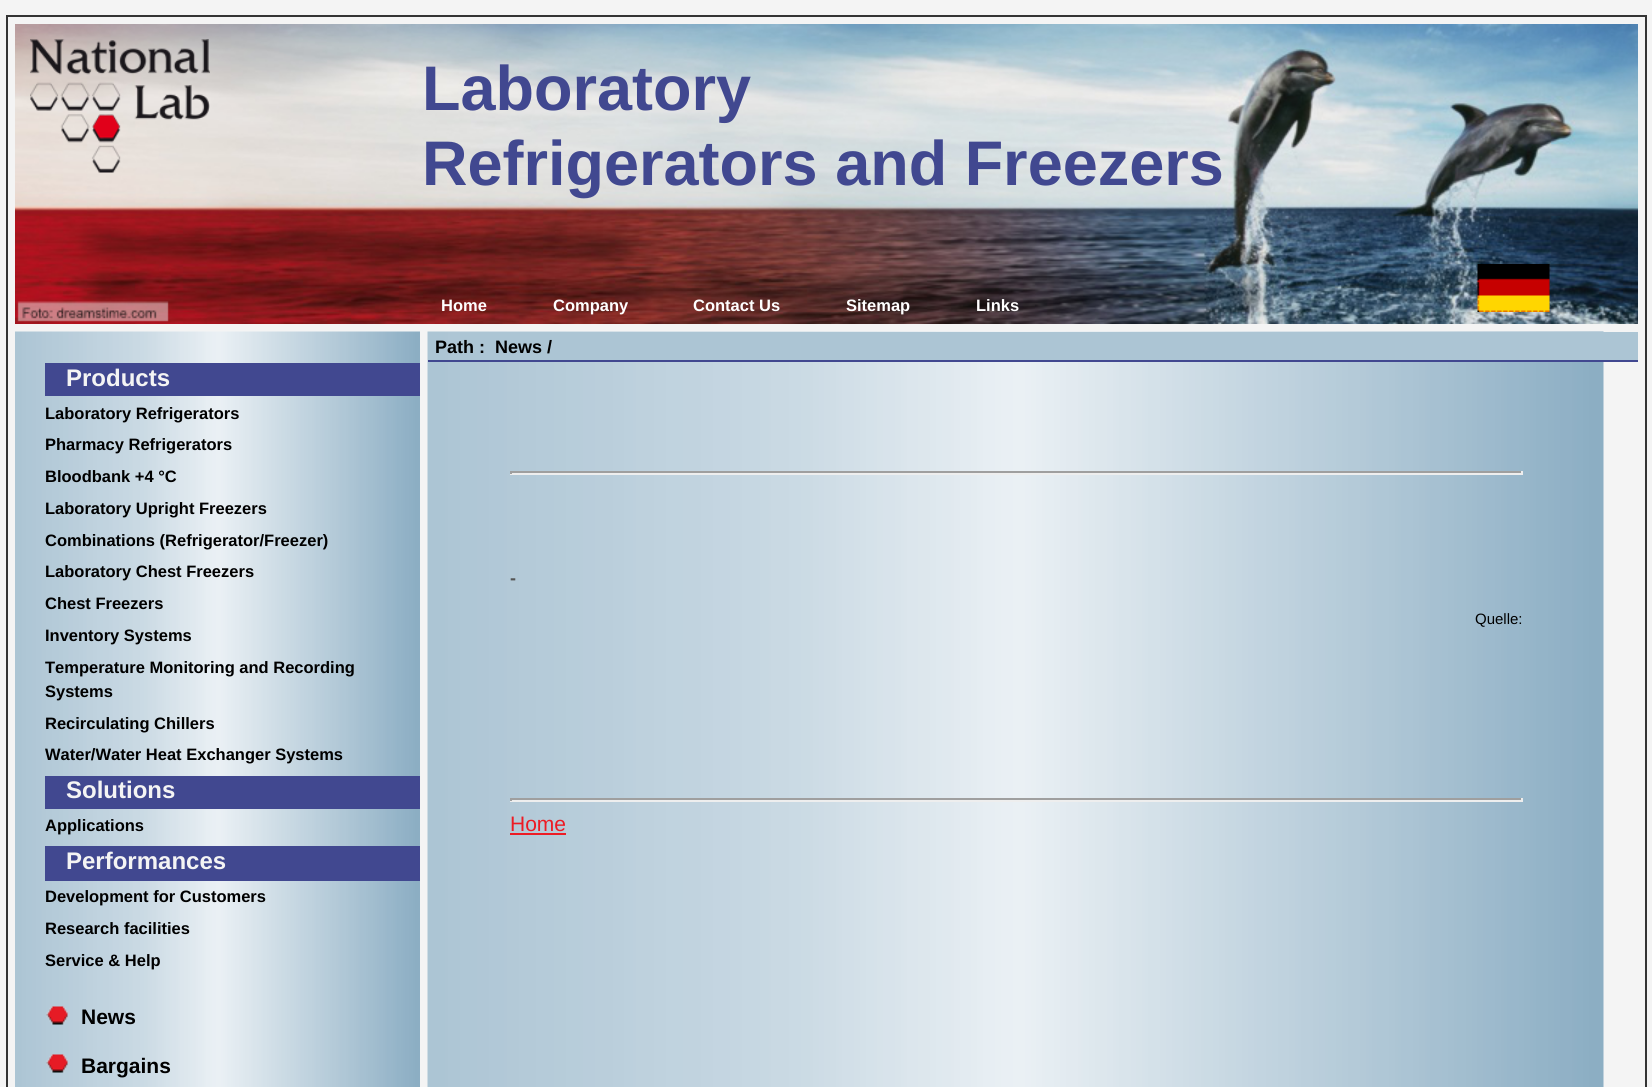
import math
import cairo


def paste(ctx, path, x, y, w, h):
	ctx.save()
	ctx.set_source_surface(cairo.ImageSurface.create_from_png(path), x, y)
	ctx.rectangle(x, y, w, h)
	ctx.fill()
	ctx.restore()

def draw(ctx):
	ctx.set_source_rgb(0.957, 0.957, 0.957)
	ctx.paint()
	ctx.rectangle(7, 16, 1639, 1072)
	ctx.set_source_rgb(0.2, 0.2, 0.2)
	ctx.stroke()
	paste(ctx, 'media/1.png', 15, 24, 1623, 300)
	paste(ctx, 'media/2.png', 30, 39, 180, 134)
	ctx.select_font_face('Liberation Sans', cairo.FONT_SLANT_NORMAL, cairo.FONT_WEIGHT_BOLD)
	ctx.set_font_size(63)
	ctx.set_source_rgb(0.255, 0.282, 0.565)
	ctx.move_to(422, 110)
	ctx.show_text('Laboratory')
	ctx.move_to(422, 185)
	ctx.show_text('Refrigerators and Freezers')
	ctx.set_font_size(16.5)
	ctx.set_source_rgb(1, 1, 1)
	for x, y, s in [
		(441, 311, 'Home'),
		(553, 311, 'Company'),
		(693, 311, 'Contact Us'),
		(846, 311, 'Sitemap'),
		(976, 311, 'Links'),
	]:
		ctx.move_to(x, y)
		ctx.show_text(s)
	paste(ctx, 'media/3.png', 1477, 264, 73, 48)
	paste(ctx, 'media/4.png', 427, 331, 1177, 756)
	ctx.set_source_rgb(0.675, 0.773, 0.831)
	ctx.rectangle(460, 332, 1178, 28)
	ctx.fill()
	ctx.set_source_rgb(0.255, 0.282, 0.565)
	ctx.rectangle(428, 360, 1210, 2)
	ctx.fill()
	ctx.set_font_size(18)
	ctx.set_source_rgb(0, 0, 0)
	ctx.move_to(435, 353)
	ctx.show_text('Path :  News /')
	paste(ctx, 'media/5.png', 15, 331, 405, 756)
	ctx.set_source_rgb(0.255, 0.282, 0.565)
	ctx.rectangle(45, 363, 375, 33)
	ctx.fill()
	ctx.set_font_size(24)
	ctx.set_source_rgb(0.957, 0.957, 0.957)
	ctx.move_to(66, 386)
	ctx.show_text('Products')
	ctx.set_font_size(16.5)
	ctx.set_source_rgb(0, 0, 0)
	for x, y, s in [
		(45, 419, 'Laboratory Refrigerators'),
		(45, 450, 'Pharmacy Refrigerators'),
		(45, 482, 'Bloodbank +4 °C'),
		(45, 514, 'Laboratory Upright Freezers'),
		(45, 546, 'Combinations (Refrigerator/Freezer)'),
		(45, 577, 'Laboratory Chest Freezers'),
		(45, 609, 'Chest Freezers'),
		(45, 641, 'Inventory Systems'),
		(45, 673, 'Temperature Monitoring and Recording'),
		(45, 697, 'Systems'),
		(45, 729, 'Recirculating Chillers'),
		(45, 760, 'Water/Water Heat Exchanger Systems'),
	]:
		ctx.move_to(x, y)
		ctx.show_text(s)
	ctx.set_source_rgb(0.255, 0.282, 0.565)
	ctx.rectangle(45, 776, 375, 33)
	ctx.fill()
	ctx.set_font_size(24)
	ctx.set_source_rgb(0.957, 0.957, 0.957)
	ctx.move_to(66, 798)
	ctx.show_text('Solutions')
	ctx.set_font_size(16.5)
	ctx.set_source_rgb(0, 0, 0)
	ctx.move_to(45, 831)
	ctx.show_text('Applications')
	ctx.set_source_rgb(0.255, 0.282, 0.565)
	ctx.rectangle(45, 846, 375, 35)
	ctx.fill()
	ctx.set_font_size(24)
	ctx.set_source_rgb(0.957, 0.957, 0.957)
	ctx.move_to(66, 869)
	ctx.show_text('Performances')
	ctx.set_font_size(16.5)
	ctx.set_source_rgb(0, 0, 0)
	for x, y, s in [
		(45, 902, 'Development for Customers'),
		(45, 934, 'Research facilities'),
		(45, 966, 'Service & Help'),
	]:
		ctx.move_to(x, y)
		ctx.show_text(s)
	paste(ctx, 'media/6.png', 46, 1006, 22, 19)
	ctx.set_font_size(21)
	ctx.move_to(81, 1024)
	ctx.show_text('News')
	paste(ctx, 'media/6.png', 46, 1054, 22, 19)
	ctx.move_to(81, 1073)
	ctx.show_text('Bargains')
	ctx.set_source_rgb(0.624, 0.624, 0.624)
	ctx.rectangle(510, 471, 1013, 2)
	ctx.fill()
	ctx.set_source_rgb(0.933, 0.933, 0.933)
	ctx.rectangle(1521, 471, 2, 3)
	ctx.rectangle(510, 473, 1013, 2)
	ctx.fill()
	ctx.set_source_rgb(0.624, 0.624, 0.624)
	ctx.rectangle(510, 471, 2, 3)
	ctx.fill()
	ctx.set_font_size(18)
	ctx.set_source_rgb(0.333, 0.333, 0.333)
	ctx.move_to(510, 584)
	ctx.show_text('-')
	ctx.select_font_face('Liberation Sans')
	ctx.set_font_size(15)
	ctx.set_source_rgb(0, 0, 0)
	ctx.move_to(1475, 624)
	ctx.show_text('Quelle:')
	ctx.set_source_rgb(0.624, 0.624, 0.624)
	ctx.rectangle(510, 798, 1013, 2)
	ctx.fill()
	ctx.set_source_rgb(0.933, 0.933, 0.933)
	ctx.rectangle(1521, 798, 2, 3)
	ctx.rectangle(510, 800, 1013, 2)
	ctx.fill()
	ctx.set_source_rgb(0.624, 0.624, 0.624)
	ctx.rectangle(510, 798, 2, 3)
	ctx.fill()
	ctx.set_font_size(21)
	ctx.set_source_rgb(0.929, 0.106, 0.141)
	ctx.move_to(510, 831)
	ctx.show_text('Home')
	ctx.rectangle(510, 833, 56, 2)
	ctx.fill()


surface = cairo.ImageSurface(cairo.FORMAT_RGB24, 1652, 1087)
ctx = cairo.Context(surface)
options = cairo.FontOptions()
options.set_hint_metrics(cairo.HINT_METRICS_OFF)
options.set_hint_style(cairo.HINT_STYLE_NONE)
ctx.set_font_options(options)
ctx.set_miter_limit(4)
draw(ctx)
surface.write_to_png('image.png')
